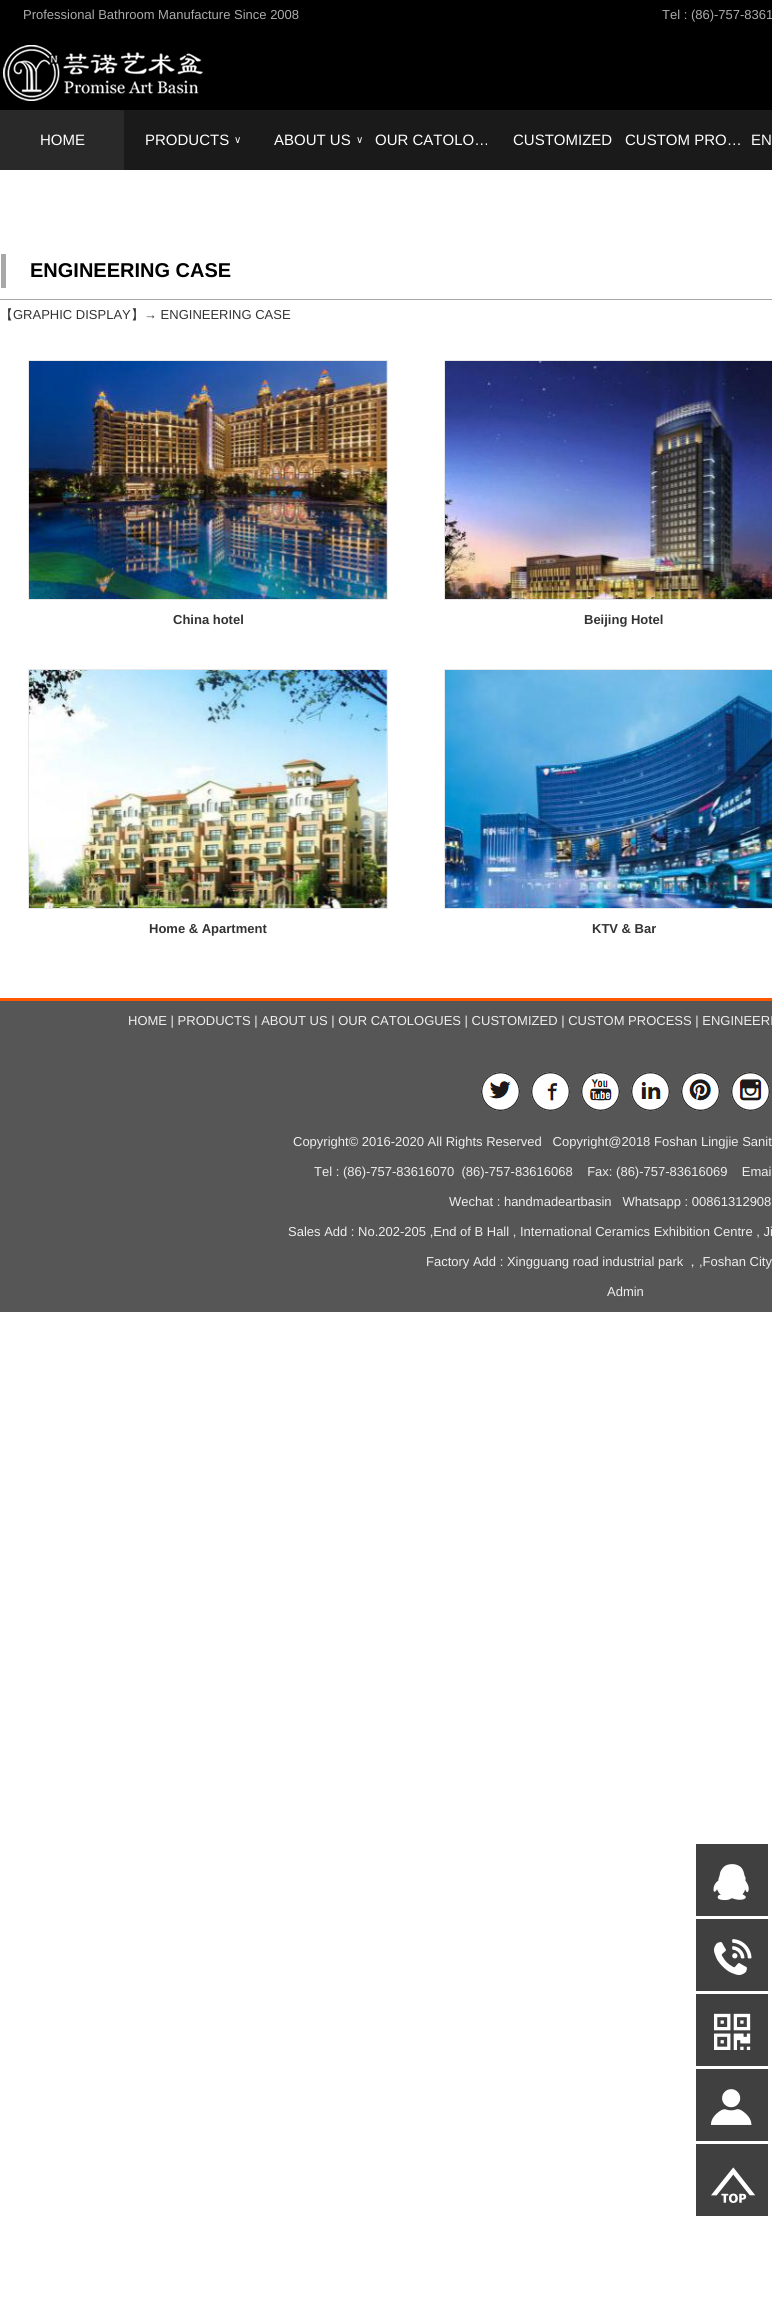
import math
import cairo


def paste(ctx, path, x, y, w, h):
	ctx.save()
	ctx.set_source_surface(cairo.ImageSurface.create_from_png(path), x, y)
	ctx.rectangle(x, y, w, h)
	ctx.fill()
	ctx.restore()

def draw(ctx):
	ctx.set_source_rgb(1, 1, 1)
	ctx.paint()
	ctx.set_source_rgb(0, 0, 0)
	ctx.rectangle(0, 0, 772, 110)
	ctx.fill()
	paste(ctx, 'media/1.png', 3, 45, 200, 56)
	ctx.select_font_face('Liberation Sans')
	ctx.set_font_size(13)
	ctx.set_source_rgb(0.675, 0.675, 0.675)
	ctx.move_to(23, 19)
	ctx.show_text('Professional Bathroom Manufacture Since 2008')
	ctx.move_to(662, 19)
	ctx.show_text('Tel : (86)-757-8361')
	ctx.set_source_rgb(0.102, 0.102, 0.102)
	ctx.rectangle(124, 110, 648, 60)
	ctx.fill()
	ctx.set_source_rgb(0.161, 0.161, 0.161)
	ctx.rectangle(0, 110, 124, 60)
	ctx.fill()
	ctx.set_font_size(15)
	ctx.set_source_rgb(1, 1, 1)
	ctx.move_to(40, 145)
	ctx.show_text('HOME')
	ctx.move_to(145, 145)
	ctx.show_text('PRODUCTS')
	ctx.select_font_face('DejaVu Sans')
	ctx.set_font_size(10)
	ctx.move_to(234, 143)
	ctx.show_text('∨')
	ctx.select_font_face('Liberation Sans')
	ctx.set_font_size(15)
	ctx.move_to(274, 145)
	ctx.show_text('ABOUT US')
	ctx.select_font_face('DejaVu Sans')
	ctx.set_font_size(10)
	ctx.move_to(356, 143)
	ctx.show_text('∨')
	ctx.select_font_face('Liberation Sans')
	ctx.set_font_size(15)
	for x, y, s in [
		(375, 145, 'OUR CATOLO…'),
		(513, 145, 'CUSTOMIZED'),
		(625, 145, 'CUSTOM PRO…'),
		(751, 145, 'EN'),
	]:
		ctx.move_to(x, y)
		ctx.show_text(s)
	paste(ctx, 'media/2.png', 0, 254, 772, 46)
	ctx.select_font_face('Liberation Sans', cairo.FONT_SLANT_NORMAL, cairo.FONT_WEIGHT_BOLD)
	ctx.set_font_size(20)
	ctx.set_source_rgb(0, 0, 0)
	ctx.move_to(30, 277)
	ctx.show_text('ENGINEERING CASE')
	ctx.select_font_face('WenQuanYi Zen Hei Medium')
	ctx.set_font_size(13)
	ctx.set_source_rgb(0.2, 0.2, 0.2)
	ctx.move_to(0, 319)
	ctx.show_text('【')
	ctx.select_font_face('Liberation Sans')
	ctx.move_to(13, 319)
	ctx.show_text('GRAPHIC DISPLAY')
	ctx.select_font_face('WenQuanYi Zen Hei Medium')
	ctx.move_to(131, 319)
	ctx.show_text('】')
	ctx.select_font_face('Liberation Sans')
	ctx.move_to(144, 319)
	ctx.show_text('→ ENGINEERING CASE')
	ctx.rectangle(28.5, 360.5, 359, 239)
	ctx.set_source_rgb(0.91, 0.91, 0.91)
	ctx.set_line_width(1)
	ctx.stroke()
	paste(ctx, 'media/3.png', 29, 361, 358, 238)
	ctx.select_font_face('Liberation Sans', cairo.FONT_SLANT_NORMAL, cairo.FONT_WEIGHT_BOLD)
	ctx.set_source_rgb(0.2, 0.2, 0.2)
	ctx.move_to(173, 624)
	ctx.show_text('China hotel')
	ctx.rectangle(444.5, 360.5, 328, 239)
	ctx.set_source_rgb(0.91, 0.91, 0.91)
	ctx.stroke()
	paste(ctx, 'media/4.png', 445, 361, 327, 238)
	ctx.set_source_rgb(0.2, 0.2, 0.2)
	ctx.move_to(584, 624)
	ctx.show_text('Beijing Hotel')
	ctx.rectangle(28.5, 669.5, 359, 239)
	ctx.set_source_rgb(0.91, 0.91, 0.91)
	ctx.stroke()
	paste(ctx, 'media/5.png', 29, 670, 358, 238)
	ctx.set_source_rgb(0.2, 0.2, 0.2)
	ctx.move_to(149, 933)
	ctx.show_text('Home & Apartment')
	ctx.rectangle(444.5, 669.5, 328, 239)
	ctx.set_source_rgb(0.91, 0.91, 0.91)
	ctx.stroke()
	paste(ctx, 'media/6.png', 445, 670, 327, 238)
	ctx.set_source_rgb(0.2, 0.2, 0.2)
	ctx.move_to(592, 933)
	ctx.show_text('KTV & Bar')
	ctx.set_source_rgb(1, 0.337, 0)
	ctx.rectangle(0, 998, 772, 3)
	ctx.fill()
	ctx.set_source_rgb(0.337, 0.337, 0.337)
	ctx.rectangle(0, 1001, 772, 311)
	ctx.fill()
	ctx.select_font_face('Liberation Sans')
	ctx.set_source_rgb(0.933, 0.933, 0.933)
	ctx.move_to(128, 1025)
	ctx.show_text('HOME | PRODUCTS | ABOUT US | OUR CATOLOGUES | CUSTOMIZED | CUSTOM PROCESS | ENGINEERI')
	paste(ctx, 'media/7.png', 481, 1072, 39, 39)
	paste(ctx, 'media/8.png', 531, 1072, 39, 39)
	paste(ctx, 'media/9.png', 581, 1072, 39, 39)
	paste(ctx, 'media/10.png', 631, 1072, 39, 39)
	paste(ctx, 'media/11.png', 681, 1072, 39, 39)
	paste(ctx, 'media/12.png', 731, 1072, 39, 39)
	for x, y, s in [
		(293, 1146, 'Copyright© 2016-2020 All Rights Reserved   Copyright@2018 Foshan Lingjie Sanit'),
		(314, 1176, 'Tel : (86)-757-83616070  (86)-757-83616068    Fax: (86)-757-83616069    Emai'),
		(449, 1206, 'Wechat : handmadeartbasin   Whatsapp : 00861312908'),
		(288, 1236, 'Sales Add : No.202-205 ,End of B Hall , International Ceramics Exhibition Centre , Ji'),
		(426, 1266, 'Factory Add : Xingguang road industrial park'),
	]:
		ctx.move_to(x, y)
		ctx.show_text(s)
	ctx.select_font_face('WenQuanYi Zen Hei Medium')
	ctx.move_to(686, 1266)
	ctx.show_text('，')
	ctx.select_font_face('Liberation Sans')
	ctx.move_to(699, 1266)
	ctx.show_text(',Foshan City')
	ctx.move_to(607, 1296)
	ctx.show_text('Admin')
	ctx.set_source_rgb(0.251, 0.251, 0.251)
	ctx.rectangle(696, 1844, 72, 72)
	ctx.fill()
	ctx.select_font_face('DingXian')
	ctx.set_font_size(46)
	ctx.set_source_rgb(1, 1, 1)
	ctx.move_to(709, 1900)
	ctx.show_text('Q')
	ctx.set_source_rgb(0.251, 0.251, 0.251)
	ctx.rectangle(696, 1919, 72, 72)
	ctx.fill()
	ctx.set_source_rgb(1, 1, 1)
	ctx.move_to(714, 1975)
	ctx.show_text('y')
	ctx.set_source_rgb(0.251, 0.251, 0.251)
	ctx.rectangle(696, 1994, 72, 72)
	ctx.fill()
	ctx.set_source_rgb(1, 1, 1)
	ctx.move_to(714, 2050)
	ctx.show_text('b')
	ctx.set_source_rgb(0.251, 0.251, 0.251)
	ctx.rectangle(696, 2069, 72, 72)
	ctx.fill()
	ctx.set_source_rgb(1, 1, 1)
	ctx.move_to(711, 2125)
	ctx.show_text('S')
	ctx.set_source_rgb(0.251, 0.251, 0.251)
	ctx.rectangle(696, 2144, 72, 72)
	ctx.fill()
	ctx.set_source_rgb(1, 1, 1)
	ctx.move_to(722, 2200)
	ctx.show_text('u')


surface = cairo.ImageSurface(cairo.FORMAT_RGB24, 772, 2319)
ctx = cairo.Context(surface)
options = cairo.FontOptions()
options.set_hint_metrics(cairo.HINT_METRICS_OFF)
options.set_hint_style(cairo.HINT_STYLE_NONE)
ctx.set_font_options(options)
ctx.set_miter_limit(4)
draw(ctx)
surface.write_to_png('image.png')
